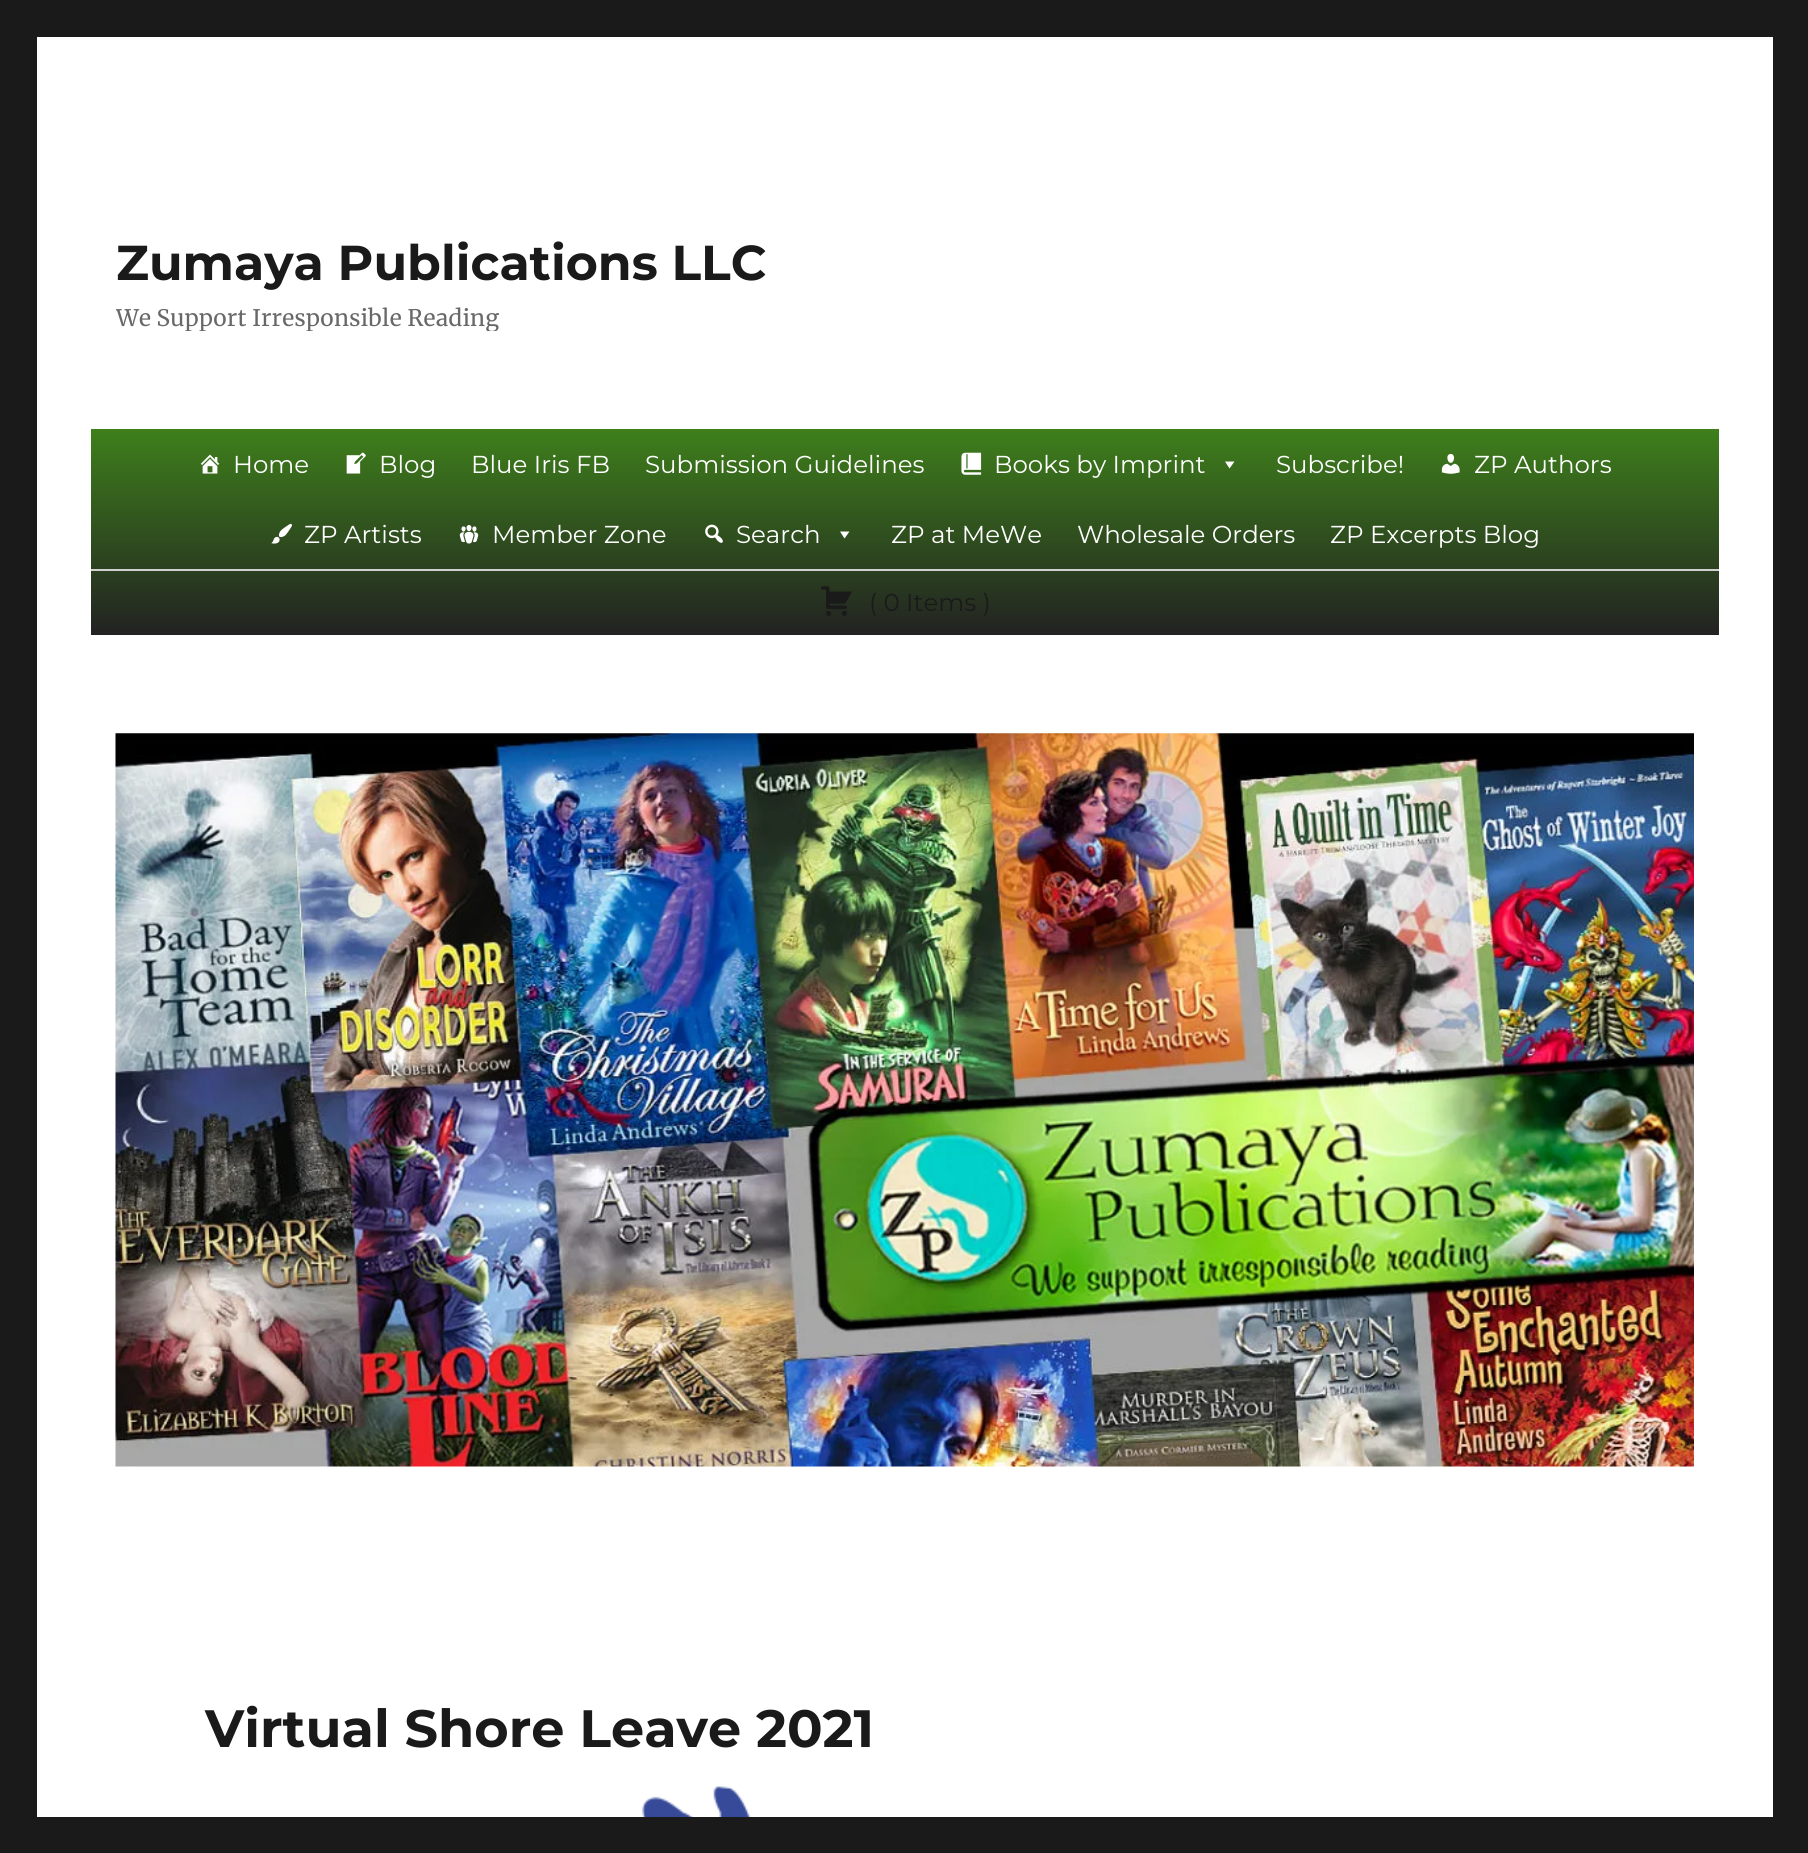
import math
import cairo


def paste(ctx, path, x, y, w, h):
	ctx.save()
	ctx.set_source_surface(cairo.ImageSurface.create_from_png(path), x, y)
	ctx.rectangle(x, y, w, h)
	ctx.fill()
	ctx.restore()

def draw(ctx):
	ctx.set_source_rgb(0.102, 0.102, 0.102)
	ctx.paint()
	ctx.set_source_rgb(1, 1, 1)
	ctx.rectangle(37, 37, 1736, 1780)
	ctx.fill()
	ctx.select_font_face('Montserrat Thin')
	ctx.set_font_size(49)
	ctx.set_source_rgb(0.102, 0.102, 0.102)
	ctx.move_to(116, 280)
	ctx.show_text('Zumaya Publications LLC')
	ctx.save()
	ctx.rectangle(116, 233, 651, 98)
	ctx.clip()
	ctx.select_font_face('Merriweather')
	ctx.set_font_size(22.75)
	ctx.set_source_rgb(0.408, 0.408, 0.408)
	ctx.move_to(116, 326)
	ctx.show_text('We Support Irresponsible Reading')
	ctx.restore()
	gradient = cairo.LinearGradient(905, 429, 905, 635)
	gradient.add_color_stop_rgba(0, 0.243, 0.498, 0.106, 1)
	gradient.add_color_stop_rgba(1, 0.133, 0.133, 0.133, 1)
	ctx.set_source(gradient)
	ctx.rectangle(91, 429, 1628, 206)
	ctx.fill()
	paste(ctx, 'media/1.png', 200, 454, 20, 20)
	ctx.select_font_face('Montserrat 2 Thin')
	ctx.set_font_size(24.5)
	ctx.set_source_rgb(1, 1, 1)
	ctx.move_to(233, 473)
	ctx.show_text('Home')
	paste(ctx, 'media/2.png', 346, 452, 20, 22)
	for x, y, s in [
		(379, 473, 'Blog'),
		(471, 473, 'Blue Iris FB'),
		(645, 473, 'Submission Guidelines'),
	]:
		ctx.move_to(x, y)
		ctx.show_text(s)
	paste(ctx, 'media/3.png', 961, 452, 21, 23)
	ctx.move_to(994, 473)
	ctx.show_text('Books by Imprint')
	ctx.new_path()
	ctx.move_to(1234.5, 461.5)
	ctx.line_to(1229.5, 468.5)
	ctx.line_to(1225, 461.5)
	ctx.close_path()
	ctx.fill()
	ctx.move_to(1276, 473)
	ctx.show_text('Subscribe!')
	paste(ctx, 'media/4.png', 1441, 453, 19, 21)
	ctx.move_to(1474, 473)
	ctx.show_text('ZP Authors')
	paste(ctx, 'media/5.png', 271, 523, 21, 21)
	ctx.move_to(304, 543)
	ctx.show_text('ZP Artists')
	paste(ctx, 'media/6.png', 459, 525, 20, 19)
	ctx.move_to(492, 543)
	ctx.show_text('Member Zone')
	paste(ctx, 'media/7.png', 705, 524, 18, 19)
	ctx.move_to(736, 543)
	ctx.show_text('Search')
	ctx.new_path()
	ctx.move_to(849.5, 531.5)
	ctx.line_to(844.5, 538.5)
	ctx.line_to(840, 531.5)
	ctx.close_path()
	ctx.fill()
	for x, y, s in [
		(891, 543, 'ZP at MeWe'),
		(1077, 543, 'Wholesale Orders'),
		(1330, 543, 'ZP Excerpts Blog'),
	]:
		ctx.move_to(x, y)
		ctx.show_text(s)
	ctx.set_source_rgb(0.82, 0.82, 0.82)
	ctx.rectangle(91, 569, 1628, 2)
	ctx.fill()
	paste(ctx, 'media/8.png', 821, 586, 31, 30)
	ctx.set_source_rgb(0.102, 0.102, 0.102)
	ctx.move_to(869, 611)
	ctx.show_text('( 0 Items )')
	paste(ctx, 'media/9.png', 115, 733, 1579, 734)
	ctx.select_font_face('Montserrat Thin')
	ctx.set_font_size(52.5)
	ctx.move_to(205, 1747)
	ctx.show_text('Virtual Shore Leave 2021')
	paste(ctx, 'media/10.png', 641, 1786, 110, 31)


surface = cairo.ImageSurface(cairo.FORMAT_RGB24, 1808, 1853)
ctx = cairo.Context(surface)
options = cairo.FontOptions()
options.set_hint_metrics(cairo.HINT_METRICS_OFF)
options.set_hint_style(cairo.HINT_STYLE_NONE)
ctx.set_font_options(options)
ctx.set_miter_limit(4)
draw(ctx)
surface.write_to_png('image.png')
